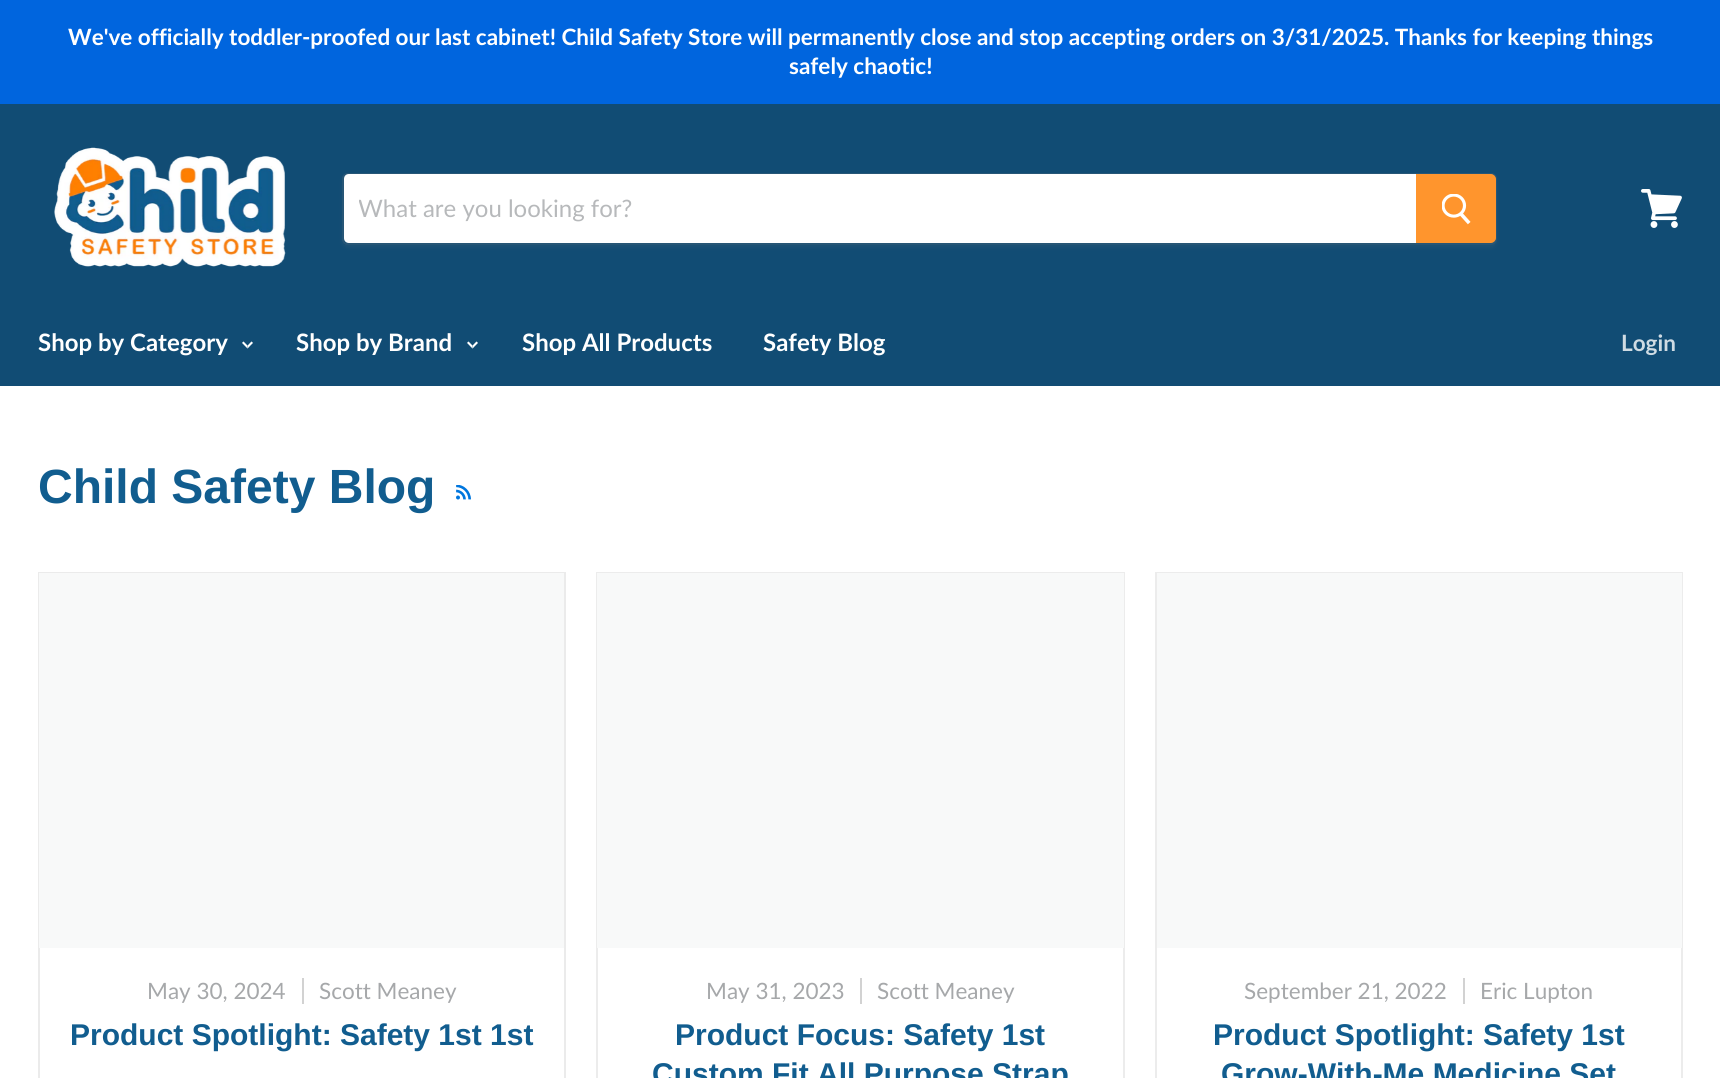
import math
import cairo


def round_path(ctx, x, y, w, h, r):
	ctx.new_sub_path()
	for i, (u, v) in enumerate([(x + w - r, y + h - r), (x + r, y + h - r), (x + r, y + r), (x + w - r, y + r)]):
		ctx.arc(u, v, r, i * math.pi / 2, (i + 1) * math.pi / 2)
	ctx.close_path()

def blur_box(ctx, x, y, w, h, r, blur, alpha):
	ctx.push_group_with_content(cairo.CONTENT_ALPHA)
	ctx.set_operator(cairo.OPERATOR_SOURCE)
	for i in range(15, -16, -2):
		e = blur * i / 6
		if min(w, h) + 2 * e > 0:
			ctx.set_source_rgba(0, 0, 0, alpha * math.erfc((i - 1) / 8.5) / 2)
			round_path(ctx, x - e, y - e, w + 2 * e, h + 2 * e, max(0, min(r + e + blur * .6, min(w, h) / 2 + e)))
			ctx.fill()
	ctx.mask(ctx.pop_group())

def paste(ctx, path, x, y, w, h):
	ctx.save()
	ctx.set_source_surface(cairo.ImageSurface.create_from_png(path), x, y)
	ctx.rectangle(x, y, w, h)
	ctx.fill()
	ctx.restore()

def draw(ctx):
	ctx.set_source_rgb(1, 1, 1)
	ctx.paint()
	ctx.set_source_rgb(0.067, 0.298, 0.455)
	ctx.rectangle(0, 104, 1720, 282)
	ctx.fill()
	ctx.set_source_rgb(0, 0.396, 0.871)
	ctx.rectangle(0, 0, 1720, 104)
	ctx.fill()
	ctx.select_font_face('Lato', cairo.FONT_SLANT_NORMAL, cairo.FONT_WEIGHT_BOLD)
	ctx.set_font_size(22.5)
	ctx.set_source_rgb(1, 1, 1)
	ctx.move_to(68, 45)
	ctx.show_text('We\'ve officially toddler-proofed our last cabinet! Child Safety Store will permanently close and stop accepting orders on 3/31/2025. Thanks for keeping things')
	ctx.move_to(789, 74)
	ctx.show_text('safely chaotic!')
	paste(ctx, 'media/1.png', 54, 147, 232, 120)
	ctx.save()
	ctx.set_fill_rule(cairo.FILL_RULE_EVEN_ODD)
	ctx.new_path()
	ctx.move_to(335, 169)
	ctx.line_to(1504, 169)
	ctx.line_to(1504, 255)
	ctx.line_to(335, 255)
	ctx.close_path()
	ctx.move_to(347, 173)
	ctx.line_to(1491, 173)
	ctx.curve_to(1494.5, 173, 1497, 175.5, 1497, 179)
	ctx.line_to(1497, 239)
	ctx.curve_to(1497, 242.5, 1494.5, 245, 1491, 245)
	ctx.line_to(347, 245)
	ctx.curve_to(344, 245, 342, 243, 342, 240)
	ctx.line_to(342, 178)
	ctx.curve_to(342, 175, 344, 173, 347, 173)
	ctx.close_path()
	ctx.clip()
	ctx.set_source_rgb(0.498, 0.498, 0.498)
	blur_box(ctx, 342, 176, 1155, 72, 6, 2, 0.11)
	ctx.restore()
	ctx.new_path()
	ctx.move_to(347, 174)
	ctx.line_to(1491, 174)
	ctx.curve_to(1494, 174, 1496, 176, 1496, 179)
	ctx.line_to(1496, 239)
	ctx.curve_to(1496, 242, 1494, 244, 1491, 244)
	ctx.line_to(347, 244)
	ctx.curve_to(345, 244, 343, 242, 343, 240)
	ctx.line_to(343, 178)
	ctx.curve_to(343, 176, 345, 174, 347, 174)
	ctx.close_path()
	ctx.set_source_rgba(0.498, 0.498, 0.498, 0.2)
	ctx.stroke()
	ctx.set_source_rgb(1, 1, 1)
	ctx.new_path()
	ctx.move_to(349, 174)
	ctx.line_to(1416, 174)
	ctx.line_to(1416, 243)
	ctx.line_to(349, 243)
	ctx.curve_to(346, 243, 344, 241, 344, 238)
	ctx.line_to(344, 179)
	ctx.curve_to(344, 176, 346, 174, 349, 174)
	ctx.close_path()
	ctx.fill()
	ctx.save()
	ctx.rectangle(359, 194, 1042, 28)
	ctx.clip()
	ctx.select_font_face('Lato')
	ctx.set_font_size(24)
	ctx.set_source_rgb(0.718, 0.725, 0.733)
	ctx.move_to(358, 217)
	ctx.show_text('What are you looking for?')
	ctx.restore()
	ctx.set_source_rgb(1, 0.584, 0.176)
	ctx.new_path()
	ctx.move_to(1417, 175)
	ctx.line_to(1491, 175)
	ctx.curve_to(1493, 175, 1495, 177, 1495, 179)
	ctx.line_to(1495, 238)
	ctx.curve_to(1495, 240, 1493, 242, 1491, 242)
	ctx.line_to(1417, 242)
	ctx.close_path()
	ctx.fill_preserve()
	ctx.stroke()
	paste(ctx, 'media/2.png', 1442, 194, 29, 31)
	paste(ctx, 'media/3.png', 1641, 189, 41, 39)
	ctx.set_font_size(24)
	ctx.set_source_rgb(1, 1, 1)
	ctx.move_to(38, 351)
	ctx.show_text('Shop by Category')
	paste(ctx, 'media/4.png', 242, 341, 11, 8)
	ctx.move_to(296, 351)
	ctx.show_text('Shop by Brand')
	paste(ctx, 'media/4.png', 467, 341, 11, 8)
	ctx.move_to(522, 351)
	ctx.show_text('Shop All Products')
	ctx.move_to(763, 351)
	ctx.show_text('Safety Blog')
	ctx.set_font_size(22.5)
	ctx.set_source_rgb(0.812, 0.859, 0.89)
	ctx.move_to(1621, 351)
	ctx.show_text('Login')
	ctx.select_font_face('Arimo', cairo.FONT_SLANT_NORMAL, cairo.FONT_WEIGHT_BOLD)
	ctx.set_font_size(48)
	ctx.set_source_rgb(0.067, 0.365, 0.561)
	ctx.move_to(38, 503)
	ctx.show_text('Child Safety Blog')
	paste(ctx, 'media/5.png', 456, 485, 15, 15)
	ctx.rectangle(39, 573, 526, 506)
	ctx.set_source_rgba(0.498, 0.498, 0.498, 0.16)
	ctx.stroke()
	ctx.set_source_rgb(0.969, 0.973, 0.973)
	ctx.rectangle(39, 573, 525, 375)
	ctx.fill()
	ctx.select_font_face('Lato')
	ctx.set_font_size(22.5)
	ctx.set_source_rgb(0.651, 0.659, 0.667)
	ctx.move_to(147, 999)
	ctx.show_text('May 30, 2024')
	ctx.set_source_rgb(0.824, 0.824, 0.824)
	ctx.rectangle(302, 978, 2, 26)
	ctx.fill()
	ctx.set_source_rgb(0.651, 0.659, 0.667)
	ctx.move_to(319, 999)
	ctx.show_text('Scott Meaney')
	ctx.select_font_face('Arimo', cairo.FONT_SLANT_NORMAL, cairo.FONT_WEIGHT_BOLD)
	ctx.set_font_size(30)
	ctx.set_source_rgb(0.067, 0.365, 0.561)
	ctx.move_to(70, 1045)
	ctx.show_text('Product Spotlight: Safety 1st 1st')
	ctx.rectangle(597, 573, 527, 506)
	ctx.set_source_rgb(0.922, 0.922, 0.922)
	ctx.stroke()
	ctx.set_source_rgb(0.969, 0.973, 0.973)
	ctx.rectangle(597, 573, 527, 375)
	ctx.fill()
	ctx.select_font_face('Lato')
	ctx.set_font_size(22.5)
	ctx.set_source_rgb(0.651, 0.659, 0.667)
	ctx.move_to(706, 999)
	ctx.show_text('May 31, 2023')
	ctx.set_source_rgb(0.824, 0.824, 0.824)
	ctx.rectangle(860, 978, 2, 26)
	ctx.fill()
	ctx.set_source_rgb(0.651, 0.659, 0.667)
	ctx.move_to(877, 999)
	ctx.show_text('Scott Meaney')
	ctx.select_font_face('Arimo', cairo.FONT_SLANT_NORMAL, cairo.FONT_WEIGHT_BOLD)
	ctx.set_font_size(30)
	ctx.set_source_rgb(0.067, 0.365, 0.561)
	ctx.move_to(675, 1045)
	ctx.show_text('Product Focus: Safety 1st')
	ctx.move_to(652, 1084)
	ctx.show_text('Custom Fit All Purpose Strap')
	ctx.rectangle(1156, 573, 526, 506)
	ctx.set_source_rgb(0.922, 0.922, 0.922)
	ctx.stroke()
	ctx.set_source_rgb(0.969, 0.973, 0.973)
	ctx.rectangle(1157, 573, 525, 375)
	ctx.fill()
	ctx.select_font_face('Lato')
	ctx.set_font_size(22.5)
	ctx.set_source_rgb(0.651, 0.659, 0.667)
	ctx.move_to(1244, 999)
	ctx.show_text('September 21, 2022')
	ctx.set_source_rgb(0.824, 0.824, 0.824)
	ctx.rectangle(1463, 978, 2, 26)
	ctx.fill()
	ctx.set_source_rgb(0.651, 0.659, 0.667)
	ctx.move_to(1480, 999)
	ctx.show_text('Eric Lupton')
	ctx.select_font_face('Arimo', cairo.FONT_SLANT_NORMAL, cairo.FONT_WEIGHT_BOLD)
	ctx.set_font_size(30)
	ctx.set_source_rgb(0.067, 0.365, 0.561)
	ctx.move_to(1213, 1045)
	ctx.show_text('Product Spotlight: Safety 1st')
	ctx.move_to(1221, 1084)
	ctx.show_text('Grow-With-Me Medicine Set')


surface = cairo.ImageSurface(cairo.FORMAT_RGB24, 1720, 1078)
ctx = cairo.Context(surface)
options = cairo.FontOptions()
options.set_hint_metrics(cairo.HINT_METRICS_OFF)
options.set_hint_style(cairo.HINT_STYLE_NONE)
ctx.set_font_options(options)
ctx.set_miter_limit(4)
draw(ctx)
surface.write_to_png('image.png')
